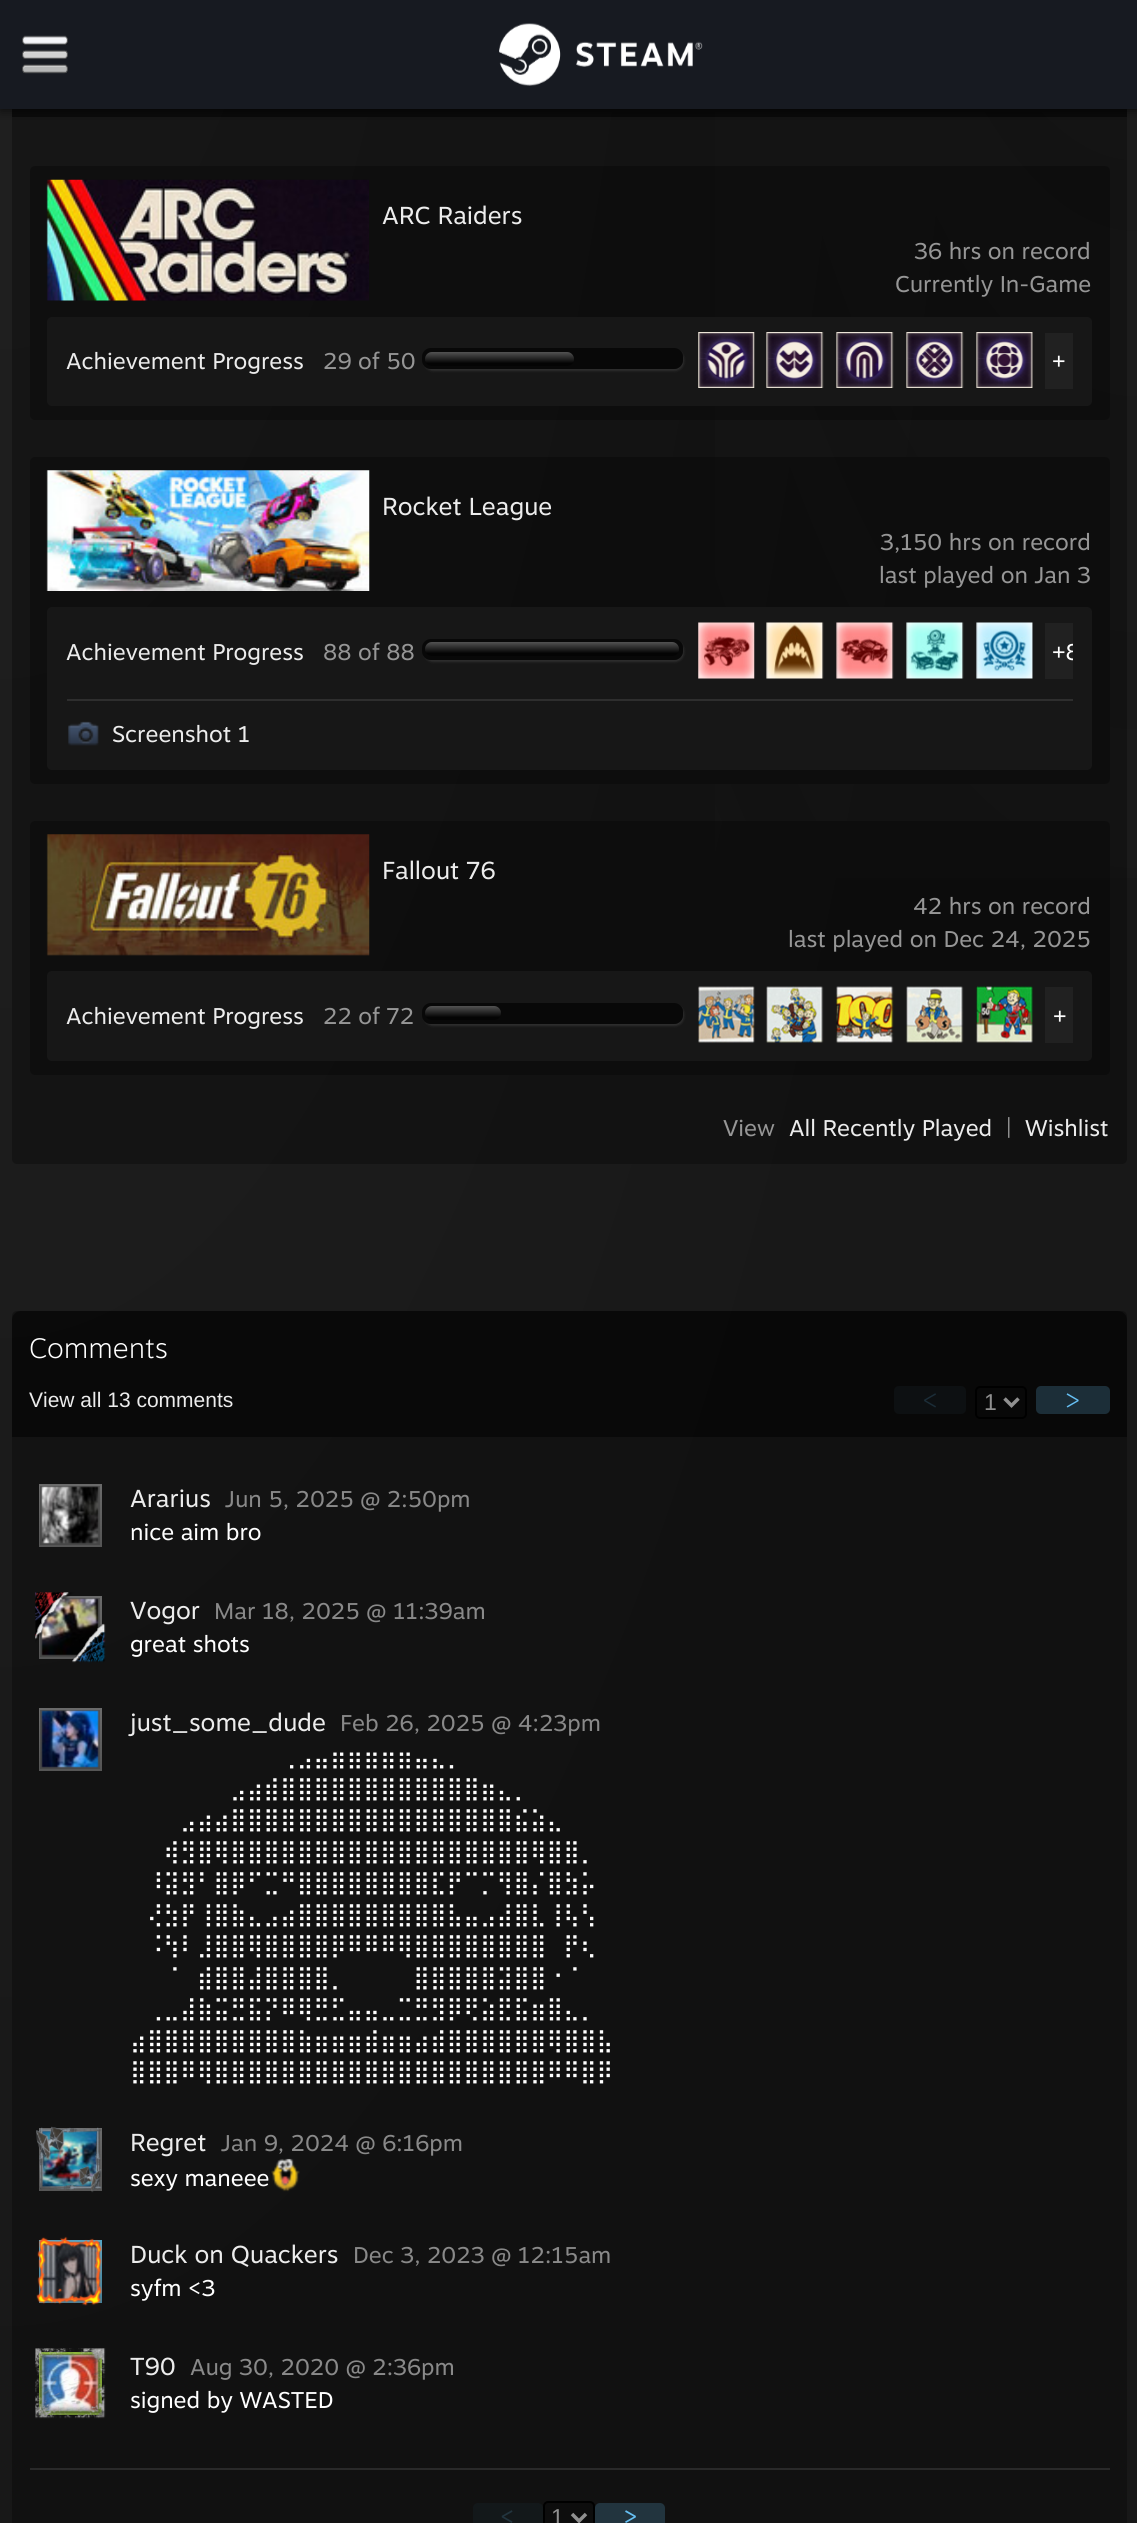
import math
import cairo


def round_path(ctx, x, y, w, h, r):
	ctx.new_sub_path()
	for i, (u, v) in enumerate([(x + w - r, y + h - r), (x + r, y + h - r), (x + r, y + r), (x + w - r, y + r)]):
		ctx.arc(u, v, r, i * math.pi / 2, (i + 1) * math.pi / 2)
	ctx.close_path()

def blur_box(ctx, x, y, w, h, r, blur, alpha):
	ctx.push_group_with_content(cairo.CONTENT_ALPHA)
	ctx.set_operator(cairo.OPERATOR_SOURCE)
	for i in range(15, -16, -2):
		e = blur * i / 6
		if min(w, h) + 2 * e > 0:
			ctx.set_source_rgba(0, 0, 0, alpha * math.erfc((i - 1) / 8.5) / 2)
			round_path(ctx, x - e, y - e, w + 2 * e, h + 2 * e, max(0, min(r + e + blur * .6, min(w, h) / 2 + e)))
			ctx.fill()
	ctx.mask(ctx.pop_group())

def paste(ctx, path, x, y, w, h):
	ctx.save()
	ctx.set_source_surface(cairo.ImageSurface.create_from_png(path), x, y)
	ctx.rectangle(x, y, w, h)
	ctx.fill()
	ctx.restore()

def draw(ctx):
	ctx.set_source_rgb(1, 1, 1)
	ctx.paint()
	gradient = cairo.RadialGradient(0, 0, 0, 0, 0, 1)
	gradient.set_matrix(cairo.Matrix(1 / 1609, 0, 0, 1 / 4994, -1 * 0 / 1609, -1 * -756 / 4994))
	gradient.add_color_stop_rgba(0, 0.133, 0.133, 0.133, 1)
	gradient.add_color_stop_rgba(0.65, 0.094, 0.094, 0.094, 1)
	ctx.set_source(gradient)
	ctx.rectangle(0, 109, 1137, 2414)
	ctx.fill()
	gradient = cairo.RadialGradient(0, 0, 0, 0, 0, 1)
	gradient.set_matrix(cairo.Matrix(1 / 1138, 0, 0, 1 / 3532, -1 * 1138 / 1138, -1 * -756 / 3532))
	gradient.add_color_stop_rgba(0, 0.192, 0.192, 0.192, 0.23)
	gradient.add_color_stop_rgba(0.77, 0.192, 0.192, 0.192, 0)
	ctx.set_source(gradient)
	ctx.rectangle(715, 109, 422, 769)
	ctx.fill()
	ctx.set_source_rgba(0, 0, 0, 0.3)
	round_path(ctx, 12, 47, 1115, 1117, 5)
	ctx.fill()
	ctx.set_source_rgba(0, 0, 0, 0.5)
	ctx.rectangle(12, 109, 1115, 8)
	ctx.fill()
	ctx.set_source_rgb(0, 0, 0)
	blur_box(ctx, 0, 0, 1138, 109, 0, 6, 0.75)
	ctx.set_source_rgb(0.09, 0.102, 0.129)
	ctx.rectangle(0, 0, 1137, 109)
	ctx.fill()
	paste(ctx, 'media/1.png', 22, 35, 46, 39)
	paste(ctx, 'media/2.png', 499, 23, 204, 63)
	ctx.set_source_rgba(0, 0, 0, 0.3)
	round_path(ctx, 30, 166, 1080, 254, 5)
	ctx.fill()
	paste(ctx, 'media/3.png', 46, 179, 323, 122)
	ctx.select_font_face('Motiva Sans')
	ctx.set_font_size(24.5)
	ctx.set_source_rgb(0.922, 0.922, 0.922)
	ctx.move_to(382, 224)
	ctx.show_text('ARC Raiders')
	ctx.set_font_size(22.75)
	ctx.set_source_rgb(0.588, 0.588, 0.588)
	ctx.move_to(914, 259)
	ctx.show_text('36 hrs on record')
	ctx.move_to(895, 292)
	ctx.show_text('Currently In-Game')
	ctx.set_source_rgb(0.09, 0.09, 0.09)
	round_path(ctx, 47, 317, 1045, 89, 5)
	ctx.fill()
	ctx.set_source_rgb(0.922, 0.922, 0.922)
	ctx.move_to(66, 369)
	ctx.show_text('Achievement Progress')
	ctx.set_source_rgb(0.588, 0.588, 0.588)
	ctx.move_to(323, 369)
	ctx.show_text('29 of 50')
	ctx.save()
	ctx.set_fill_rule(cairo.FILL_RULE_EVEN_ODD)
	ctx.new_path()
	ctx.move_to(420, 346)
	ctx.line_to(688, 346)
	ctx.line_to(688, 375)
	ctx.line_to(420, 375)
	ctx.close_path()
	ctx.move_to(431, 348)
	ctx.line_to(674, 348)
	ctx.curve_to(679, 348, 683, 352, 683, 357)
	ctx.line_to(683, 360)
	ctx.curve_to(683, 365, 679, 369, 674, 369)
	ctx.line_to(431, 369)
	ctx.curve_to(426, 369, 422, 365, 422, 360)
	ctx.line_to(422, 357)
	ctx.curve_to(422, 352, 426, 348, 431, 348)
	ctx.close_path()
	ctx.clip()
	ctx.set_source_rgb(1, 1, 1)
	blur_box(ctx, 424, 350, 260, 21, 9, 1, 0.1)
	ctx.restore()
	ctx.set_source_rgba(0, 0, 0, 0.3)
	round_path(ctx, 422, 348, 261, 21, 9)
	ctx.fill()
	ctx.set_source_rgba(0, 0, 0, 0.5)
	ctx.new_path()
	ctx.move_to(431, 348)
	ctx.line_to(674, 348)
	ctx.curve_to(679, 348, 683, 352, 683, 357)
	ctx.line_to(683, 360)
	ctx.curve_to(683, 365, 679, 369, 674, 369)
	ctx.line_to(431, 369)
	ctx.curve_to(426, 369, 422, 365, 422, 360)
	ctx.line_to(422, 357)
	ctx.curve_to(422, 352, 426, 348, 431, 348)
	ctx.close_path()
	ctx.fill()
	gradient = cairo.LinearGradient(500, 352, 500, 366)
	gradient.add_color_stop_rgba(0, 0.322, 0.322, 0.322, 1)
	gradient.add_color_stop_rgba(0.8, 0.016, 0.016, 0.016, 1)
	ctx.set_source(gradient)
	round_path(ctx, 425, 352, 149, 14, 7)
	ctx.fill()
	paste(ctx, 'media/4.png', 698, 332, 57, 56)
	paste(ctx, 'media/5.png', 766, 332, 58, 56)
	paste(ctx, 'media/6.png', 836, 332, 58, 56)
	paste(ctx, 'media/7.png', 906, 332, 58, 56)
	paste(ctx, 'media/8.png', 976, 332, 57, 56)
	ctx.set_source_rgb(0.129, 0.129, 0.129)
	ctx.rectangle(1045, 333, 28, 56)
	ctx.fill()
	ctx.set_source_rgb(1, 1, 1)
	ctx.move_to(1052, 369)
	ctx.show_text('+')
	ctx.set_source_rgba(0, 0, 0, 0.3)
	round_path(ctx, 30, 457, 1080, 327, 5)
	ctx.fill()
	paste(ctx, 'media/9.png', 46, 470, 324, 121)
	ctx.set_font_size(24.5)
	ctx.set_source_rgb(0.922, 0.922, 0.922)
	ctx.move_to(382, 515)
	ctx.show_text('Rocket League')
	ctx.set_font_size(22.75)
	ctx.set_source_rgb(0.588, 0.588, 0.588)
	ctx.move_to(880, 550)
	ctx.show_text('3,150 hrs on record')
	ctx.move_to(879, 583)
	ctx.show_text('last played on Jan 3')
	ctx.set_source_rgb(0.09, 0.09, 0.09)
	round_path(ctx, 47, 607, 1045, 163, 5)
	ctx.fill()
	ctx.set_source_rgb(0.922, 0.922, 0.922)
	ctx.move_to(66, 660)
	ctx.show_text('Achievement Progress')
	ctx.set_source_rgb(0.588, 0.588, 0.588)
	ctx.move_to(323, 660)
	ctx.show_text('88 of 88')
	ctx.save()
	ctx.set_fill_rule(cairo.FILL_RULE_EVEN_ODD)
	ctx.new_path()
	ctx.move_to(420, 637)
	ctx.line_to(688, 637)
	ctx.line_to(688, 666)
	ctx.line_to(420, 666)
	ctx.close_path()
	ctx.move_to(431, 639)
	ctx.line_to(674, 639)
	ctx.curve_to(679, 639, 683, 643, 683, 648)
	ctx.line_to(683, 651)
	ctx.curve_to(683, 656, 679, 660, 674, 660)
	ctx.line_to(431, 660)
	ctx.curve_to(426, 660, 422, 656, 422, 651)
	ctx.line_to(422, 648)
	ctx.curve_to(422, 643, 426, 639, 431, 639)
	ctx.close_path()
	ctx.clip()
	ctx.set_source_rgb(1, 1, 1)
	blur_box(ctx, 424, 641, 260, 21, 9, 1, 0.1)
	ctx.restore()
	ctx.set_source_rgba(0, 0, 0, 0.3)
	round_path(ctx, 422, 639, 261, 21, 9)
	ctx.fill()
	ctx.set_source_rgba(0, 0, 0, 0.5)
	ctx.new_path()
	ctx.move_to(431, 639)
	ctx.line_to(674, 639)
	ctx.curve_to(679, 639, 683, 643, 683, 648)
	ctx.line_to(683, 651)
	ctx.curve_to(683, 656, 679, 660, 674, 660)
	ctx.line_to(431, 660)
	ctx.curve_to(426, 660, 422, 656, 422, 651)
	ctx.line_to(422, 648)
	ctx.curve_to(422, 643, 426, 639, 431, 639)
	ctx.close_path()
	ctx.fill()
	gradient = cairo.LinearGradient(552, 642, 552, 656)
	gradient.add_color_stop_rgba(0, 0.322, 0.322, 0.322, 1)
	gradient.add_color_stop_rgba(0.8, 0.016, 0.016, 0.016, 1)
	ctx.set_source(gradient)
	round_path(ctx, 425, 642, 254, 14, 7)
	ctx.fill()
	paste(ctx, 'media/10.png', 698, 622, 57, 57)
	paste(ctx, 'media/11.png', 766, 622, 58, 57)
	paste(ctx, 'media/12.png', 836, 622, 58, 57)
	paste(ctx, 'media/13.png', 906, 622, 58, 57)
	paste(ctx, 'media/14.png', 976, 622, 57, 57)
	ctx.set_source_rgb(0.129, 0.129, 0.129)
	ctx.rectangle(1045, 623, 28, 56)
	ctx.fill()
	ctx.save()
	ctx.rectangle(698, 623, 375, 56)
	ctx.clip()
	ctx.set_source_rgb(1, 1, 1)
	ctx.move_to(1052, 660)
	ctx.show_text('+8')
	ctx.restore()
	ctx.set_source_rgb(0.18, 0.18, 0.18)
	ctx.rectangle(67, 699, 1006, 2)
	ctx.fill()
	paste(ctx, 'media/15.png', 68, 721, 31, 25)
	ctx.set_source_rgb(0.922, 0.922, 0.922)
	ctx.move_to(112, 742)
	ctx.show_text('Screenshot 1')
	ctx.set_source_rgba(0, 0, 0, 0.3)
	round_path(ctx, 30, 821, 1080, 254, 5)
	ctx.fill()
	paste(ctx, 'media/16.png', 46, 834, 324, 122)
	ctx.set_font_size(24.5)
	ctx.set_source_rgb(0.922, 0.922, 0.922)
	ctx.move_to(382, 879)
	ctx.show_text('Fallout 76')
	ctx.set_font_size(22.75)
	ctx.set_source_rgb(0.588, 0.588, 0.588)
	ctx.move_to(913, 914)
	ctx.show_text('42 hrs on record')
	ctx.move_to(788, 947)
	ctx.show_text('last played on Dec 24, 2025')
	ctx.set_source_rgb(0.09, 0.09, 0.09)
	round_path(ctx, 47, 971, 1045, 90, 5)
	ctx.fill()
	ctx.set_source_rgb(0.922, 0.922, 0.922)
	ctx.move_to(66, 1024)
	ctx.show_text('Achievement Progress')
	ctx.set_source_rgb(0.588, 0.588, 0.588)
	ctx.move_to(323, 1024)
	ctx.show_text('22 of 72')
	ctx.save()
	ctx.set_fill_rule(cairo.FILL_RULE_EVEN_ODD)
	ctx.new_path()
	ctx.move_to(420, 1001)
	ctx.line_to(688, 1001)
	ctx.line_to(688, 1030)
	ctx.line_to(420, 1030)
	ctx.close_path()
	ctx.move_to(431, 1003)
	ctx.line_to(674, 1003)
	ctx.curve_to(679, 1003, 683, 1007, 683, 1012)
	ctx.line_to(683, 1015)
	ctx.curve_to(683, 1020, 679, 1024, 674, 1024)
	ctx.line_to(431, 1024)
	ctx.curve_to(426, 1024, 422, 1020, 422, 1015)
	ctx.line_to(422, 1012)
	ctx.curve_to(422, 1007, 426, 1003, 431, 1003)
	ctx.close_path()
	ctx.clip()
	ctx.set_source_rgb(1, 1, 1)
	blur_box(ctx, 424, 1005, 260, 21, 9, 1, 0.1)
	ctx.restore()
	ctx.set_source_rgba(0, 0, 0, 0.3)
	round_path(ctx, 422, 1003, 261, 21, 9)
	ctx.fill()
	ctx.set_source_rgba(0, 0, 0, 0.5)
	ctx.new_path()
	ctx.move_to(431, 1003)
	ctx.line_to(674, 1003)
	ctx.curve_to(679, 1003, 683, 1007, 683, 1012)
	ctx.line_to(683, 1015)
	ctx.curve_to(683, 1020, 679, 1024, 674, 1024)
	ctx.line_to(431, 1024)
	ctx.curve_to(426, 1024, 422, 1020, 422, 1015)
	ctx.line_to(422, 1012)
	ctx.curve_to(422, 1007, 426, 1003, 431, 1003)
	ctx.close_path()
	ctx.fill()
	gradient = cairo.LinearGradient(463, 1006, 463, 1020)
	gradient.add_color_stop_rgba(0, 0.322, 0.322, 0.322, 1)
	gradient.add_color_stop_rgba(0.8, 0.016, 0.016, 0.016, 1)
	ctx.set_source(gradient)
	round_path(ctx, 425, 1006, 76, 14, 7)
	ctx.fill()
	paste(ctx, 'media/17.png', 698, 986, 57, 57)
	paste(ctx, 'media/18.png', 766, 986, 58, 57)
	paste(ctx, 'media/19.png', 836, 986, 58, 57)
	paste(ctx, 'media/20.png', 906, 986, 58, 57)
	paste(ctx, 'media/21.png', 976, 986, 57, 57)
	ctx.set_source_rgb(0.129, 0.129, 0.129)
	ctx.rectangle(1045, 987, 28, 56)
	ctx.fill()
	ctx.set_source_rgb(1, 1, 1)
	ctx.move_to(1053, 1024)
	ctx.show_text('+')
	ctx.set_source_rgb(0.588, 0.588, 0.588)
	ctx.move_to(723, 1136)
	ctx.show_text('View')
	ctx.set_source_rgb(0.922, 0.922, 0.922)
	ctx.move_to(789, 1136)
	ctx.show_text('All Recently Played')
	ctx.set_source_rgb(0.588, 0.588, 0.588)
	ctx.move_to(1006, 1136)
	ctx.show_text('|')
	ctx.set_source_rgb(0.922, 0.922, 0.922)
	ctx.move_to(1025, 1136)
	ctx.show_text('Wishlist')
	ctx.set_source_rgba(0, 0, 0, 0.3)
	round_path(ctx, 12, 1311, 1115, 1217, 5)
	ctx.fill()
	ctx.set_source_rgba(0, 0, 0, 0.5)
	ctx.new_path()
	ctx.move_to(21, 1311)
	ctx.line_to(1118, 1311)
	ctx.curve_to(1123, 1311, 1127, 1315, 1127, 1320)
	ctx.line_to(1127, 1437)
	ctx.line_to(12, 1437)
	ctx.line_to(12, 1320)
	ctx.curve_to(12, 1315, 16, 1311, 21, 1311)
	ctx.close_path()
	ctx.fill()
	ctx.select_font_face('Motiva Sans Thin')
	ctx.set_font_size(28)
	ctx.set_source_rgb(1, 1, 1)
	ctx.move_to(29, 1358)
	ctx.show_text('Comments')
	ctx.select_font_face('Liberation Sans')
	ctx.set_font_size(21)
	ctx.set_source_rgb(0.922, 0.922, 0.922)
	ctx.move_to(29, 1407)
	ctx.show_text('View all 13 comments')
	ctx.set_source_rgb(0.051, 0.063, 0.071)
	round_path(ctx, 894, 1386, 72, 28, 5)
	ctx.fill()
	ctx.select_font_face('Motiva Sans Thin')
	ctx.set_font_size(28)
	ctx.set_source_rgb(0.106, 0.176, 0.22)
	ctx.move_to(922, 1410)
	ctx.show_text('<')
	round_path(ctx, 976, 1387, 50, 31, 4)
	ctx.set_source_rgb(0, 0, 0)
	ctx.stroke()
	ctx.new_path()
	ctx.move_to(1004.5, 1398.5)
	ctx.line_to(1011.5, 1405.5)
	ctx.line_to(1018.5, 1398.5)
	ctx.set_source_rgb(0.565, 0.565, 0.565)
	ctx.set_line_width(3.5)
	ctx.stroke()
	ctx.select_font_face('Liberation Sans')
	ctx.set_font_size(23)
	ctx.move_to(984, 1410)
	ctx.show_text('1')
	ctx.set_source_rgb(0.11, 0.18, 0.22)
	round_path(ctx, 1036, 1386, 74, 28, 5)
	ctx.fill()
	ctx.select_font_face('Motiva Sans Thin')
	ctx.set_font_size(28)
	ctx.set_source_rgb(0.4, 0.753, 0.957)
	ctx.move_to(1064, 1410)
	ctx.show_text('>')
	gradient = cairo.LinearGradient(70, 1484, 70, 1547)
	gradient.add_color_stop_rgba(0.05, 0.416, 0.416, 0.416, 1)
	gradient.add_color_stop_rgba(0.95, 0.333, 0.333, 0.333, 1)
	ctx.set_source(gradient)
	ctx.rectangle(39, 1484, 63, 63)
	ctx.fill()
	gradient = cairo.LinearGradient(70, 1486, 70, 1545)
	gradient.add_color_stop_rgba(0.05, 0.318, 0.318, 0.318, 1)
	gradient.add_color_stop_rgba(0.95, 0.278, 0.278, 0.278, 1)
	ctx.set_source(gradient)
	ctx.rectangle(40, 1486, 60, 59)
	ctx.fill()
	paste(ctx, 'media/22.png', 41, 1486, 58, 58)
	ctx.select_font_face('Motiva Sans')
	ctx.set_font_size(24.5)
	ctx.set_source_rgb(0.922, 0.922, 0.922)
	ctx.move_to(130, 1507)
	ctx.show_text('Ararius')
	ctx.set_font_size(22.75)
	ctx.set_source_rgb(0.537, 0.537, 0.537)
	ctx.move_to(225, 1507)
	ctx.show_text('Jun 5, 2025 @ 2:50pm')
	ctx.set_source_rgb(1, 1, 1)
	ctx.move_to(130, 1540)
	ctx.show_text('nice aim bro')
	gradient = cairo.LinearGradient(70, 1596, 70, 1659)
	gradient.add_color_stop_rgba(0.05, 0.416, 0.416, 0.416, 1)
	gradient.add_color_stop_rgba(0.95, 0.333, 0.333, 0.333, 1)
	ctx.set_source(gradient)
	ctx.rectangle(39, 1596, 63, 63)
	ctx.fill()
	gradient = cairo.LinearGradient(70, 1598, 70, 1657)
	gradient.add_color_stop_rgba(0.05, 0.318, 0.318, 0.318, 1)
	gradient.add_color_stop_rgba(0.95, 0.278, 0.278, 0.278, 1)
	ctx.set_source(gradient)
	ctx.rectangle(40, 1598, 60, 59)
	ctx.fill()
	paste(ctx, 'media/24.png', 41, 1598, 58, 58)
	paste(ctx, 'media/23.png', 35, 1592, 71, 71)
	ctx.set_font_size(24.5)
	ctx.set_source_rgb(0.922, 0.922, 0.922)
	ctx.move_to(130, 1619)
	ctx.show_text('Vogor')
	ctx.set_font_size(22.75)
	ctx.set_source_rgb(0.537, 0.537, 0.537)
	ctx.move_to(214, 1619)
	ctx.show_text('Mar 18, 2025 @ 11:39am')
	ctx.set_source_rgb(1, 1, 1)
	ctx.move_to(130, 1652)
	ctx.show_text('great shots')
	gradient = cairo.LinearGradient(70, 1708, 70, 1771)
	gradient.add_color_stop_rgba(0.05, 0.416, 0.416, 0.416, 1)
	gradient.add_color_stop_rgba(0.95, 0.333, 0.333, 0.333, 1)
	ctx.set_source(gradient)
	ctx.rectangle(39, 1708, 63, 63)
	ctx.fill()
	gradient = cairo.LinearGradient(70, 1710, 70, 1769)
	gradient.add_color_stop_rgba(0.05, 0.318, 0.318, 0.318, 1)
	gradient.add_color_stop_rgba(0.95, 0.278, 0.278, 0.278, 1)
	ctx.set_source(gradient)
	ctx.rectangle(40, 1710, 60, 59)
	ctx.fill()
	paste(ctx, 'media/25.png', 41, 1710, 58, 58)
	ctx.set_font_size(24.5)
	ctx.set_source_rgb(0.922, 0.922, 0.922)
	ctx.move_to(130, 1731)
	ctx.show_text('just_some_dude')
	ctx.set_font_size(22.75)
	ctx.set_source_rgb(0.537, 0.537, 0.537)
	ctx.move_to(340, 1731)
	ctx.show_text('Feb 26, 2025 @ 4:23pm')
	ctx.select_font_face('DejaVu Sans')
	ctx.set_source_rgb(1, 1, 1)
	for x, y, s in [
		(130, 1764, '⠀⠀⠀⠀⠀⠀⠀⠀⠀⢀⣠⣤⣶⣶⣶⣶⣶⣤⣄⡀⠀⠀⠀⠀⠀⠀'),
		(130, 1796, '⠀⠀⠀⠀⠀⠀⣠⣴⣾⣿⣿⣿⣿⣿⣿⣿⣿⣿⣿⣿⣿⣶⣄⡀⠀⠀⠀⠀⠀'),
		(130, 1827, '⠀⠀⠀⣠⣴⣴⣿⣿⣿⣿⣿⣿⣿⣿⣿⣿⣿⣿⣿⣿⣿⣿⣿⣮⣵⣄⠀⠀⠀'),
		(130, 1859, '⠀⠀⢾⣻⣿⢿⣿⣿⣿⣿⣿⣿⣿⣿⣿⣿⣿⣿⣿⣿⣿⣿⣿⣿⢿⣿⣿⡀⠀'),
		(130, 1890, '⠀⠸⣽⣻⠃⣿⡿⠋⣉⠛⣿⣿⣿⣿⣿⣿⣿⣿⣏⡟⠉⡉⢻⣿⡌⣿⣳⡥⠀'),
		(130, 1922, '⠀⢜⣳⡟⢸⣿⣷⣄⣠⣴⣿⣿⣿⣿⣿⣿⣿⣿⣿⣧⣤⣠⣼⣿⣇⢸⢧⢣⠀'),
		(130, 1953, '⠀⠨⢳⠇⣸⣿⣿⢿⣿⣿⣿⣿⡿⠿⠿⠿⢿⣿⣿⣿⣿⣿⣿⣿⣿⠀⡟⢆⠀'),
		(130, 1985, '⠀⠀⠈⠀⣾⣿⣿⣼⣿⣿⣿⣿⡀⠀⠀⠀⠀⣿⣿⣿⣿⣿⣽⣿⣿⠐⠈⠀⠀'),
		(130, 2016, '⠀⢀⣀⣼⣷⣭⣛⣯⡝⠿⢿⣛⣋⣤⣤⣀⣉⣛⣻⡿⢟⣵⣟⣯⣶⣿⣄⡀⠀'),
		(130, 2048, '⣴⣿⣿⣿⣿⣿⣿⣿⣿⣿⣷⣶⣶⣶⣾⣶⣶⣴⣾⣿⣿⣿⣿⣿⣿⢿⣿⣿⣧'),
		(130, 2079, '⣿⣿⣿⠿⢿⣿⣿⣿⣿⣿⣿⣿⣿⣿⣿⣿⣿⣿⣿⣿⣿⣿⣿⣿⣿⠿⠿⣿⡿'),
	]:
		ctx.move_to(x, y)
		ctx.show_text(s)
	gradient = cairo.LinearGradient(70, 2128, 70, 2191)
	gradient.add_color_stop_rgba(0.05, 0.416, 0.416, 0.416, 1)
	gradient.add_color_stop_rgba(0.95, 0.333, 0.333, 0.333, 1)
	ctx.set_source(gradient)
	ctx.rectangle(39, 2128, 63, 63)
	ctx.fill()
	gradient = cairo.LinearGradient(70, 2130, 70, 2189)
	gradient.add_color_stop_rgba(0.05, 0.318, 0.318, 0.318, 1)
	gradient.add_color_stop_rgba(0.95, 0.278, 0.278, 0.278, 1)
	ctx.set_source(gradient)
	ctx.rectangle(40, 2130, 60, 59)
	ctx.fill()
	paste(ctx, 'media/27.png', 41, 2130, 58, 58)
	paste(ctx, 'media/26.png', 36, 2126, 66, 67)
	ctx.select_font_face('Motiva Sans')
	ctx.set_font_size(24.5)
	ctx.set_source_rgb(0.922, 0.922, 0.922)
	ctx.move_to(130, 2151)
	ctx.show_text('Regret')
	ctx.set_font_size(22.75)
	ctx.set_source_rgb(0.537, 0.537, 0.537)
	ctx.move_to(221, 2151)
	ctx.show_text('Jan 9, 2024 @ 6:16pm')
	ctx.set_source_rgb(1, 1, 1)
	ctx.move_to(130, 2186)
	ctx.show_text('sexy maneee')
	paste(ctx, 'media/28.png', 271, 2158, 29, 34)
	gradient = cairo.LinearGradient(70, 2240, 70, 2303)
	gradient.add_color_stop_rgba(0.05, 0.325, 0.643, 0.769, 1)
	gradient.add_color_stop_rgba(0.95, 0.271, 0.502, 0.592, 1)
	ctx.set_source(gradient)
	ctx.rectangle(39, 2240, 63, 63)
	ctx.fill()
	gradient = cairo.LinearGradient(70, 2242, 70, 2301)
	gradient.add_color_stop_rgba(0.05, 0.255, 0.467, 0.561, 1)
	gradient.add_color_stop_rgba(0.95, 0.239, 0.412, 0.482, 1)
	ctx.set_source(gradient)
	ctx.rectangle(40, 2242, 60, 59)
	ctx.fill()
	paste(ctx, 'media/30.png', 41, 2242, 58, 58)
	paste(ctx, 'media/29.png', 36, 2236, 67, 70)
	ctx.set_font_size(24.5)
	ctx.set_source_rgb(0.922, 0.922, 0.922)
	ctx.move_to(130, 2263)
	ctx.show_text('Duck on Quackers')
	ctx.set_font_size(22.75)
	ctx.set_source_rgb(0.537, 0.537, 0.537)
	ctx.move_to(353, 2263)
	ctx.show_text('Dec 3, 2023 @ 12:15am')
	ctx.set_source_rgb(1, 1, 1)
	ctx.move_to(130, 2296)
	ctx.show_text('syfm <3')
	gradient = cairo.LinearGradient(70, 2352, 70, 2415)
	gradient.add_color_stop_rgba(0.05, 0.561, 0.725, 0.231, 1)
	gradient.add_color_stop_rgba(0.95, 0.431, 0.549, 0.192, 1)
	ctx.set_source(gradient)
	ctx.rectangle(39, 2352, 63, 63)
	ctx.fill()
	gradient = cairo.LinearGradient(70, 2354, 70, 2413)
	gradient.add_color_stop_rgba(0.05, 0.4, 0.506, 0.18, 1)
	gradient.add_color_stop_rgba(0.95, 0.349, 0.439, 0.169, 1)
	ctx.set_source(gradient)
	ctx.rectangle(40, 2354, 60, 59)
	ctx.fill()
	paste(ctx, 'media/32.png', 41, 2354, 58, 58)
	paste(ctx, 'media/31.png', 35, 2348, 71, 71)
	ctx.set_font_size(24.5)
	ctx.set_source_rgb(0.922, 0.922, 0.922)
	ctx.move_to(130, 2375)
	ctx.show_text('T90')
	ctx.set_font_size(22.75)
	ctx.set_source_rgb(0.537, 0.537, 0.537)
	ctx.move_to(190, 2375)
	ctx.show_text('Aug 30, 2020 @ 2:36pm')
	ctx.set_source_rgb(1, 1, 1)
	ctx.move_to(130, 2408)
	ctx.show_text('signed by WASTED')
	ctx.set_source_rgb(0.161, 0.161, 0.161)
	ctx.rectangle(30, 2468, 1080, 2)
	ctx.fill()
	ctx.set_source_rgb(0.078, 0.094, 0.102)
	round_path(ctx, 473, 2503, 70, 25, 5)
	ctx.fill()
	ctx.set_font_size(24.5)
	ctx.set_source_rgb(0.133, 0.204, 0.243)
	ctx.move_to(500, 2525)
	ctx.show_text('<')
	ctx.set_source_rgb(0.051, 0.051, 0.051)
	round_path(ctx, 544, 2502, 50, 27, 4)
	ctx.fill_preserve()
	ctx.set_source_rgb(0, 0, 0)
	ctx.set_line_width(2)
	ctx.stroke()
	ctx.new_path()
	ctx.move_to(572, 2514)
	ctx.line_to(579, 2521)
	ctx.line_to(586, 2514)
	ctx.set_source_rgb(0.565, 0.565, 0.565)
	ctx.set_line_width(3.5)
	ctx.stroke()
	ctx.select_font_face('Liberation Sans')
	ctx.set_font_size(23)
	ctx.move_to(551, 2525)
	ctx.show_text('1')
	ctx.set_source_rgb(0.133, 0.204, 0.243)
	round_path(ctx, 595, 2503, 70, 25, 5)
	ctx.fill()
	ctx.select_font_face('Motiva Sans')
	ctx.set_font_size(24.5)
	ctx.set_source_rgb(0.4, 0.753, 0.957)
	ctx.move_to(623, 2525)
	ctx.show_text('>')


surface = cairo.ImageSurface(cairo.FORMAT_RGB24, 1137, 2523)
ctx = cairo.Context(surface)
options = cairo.FontOptions()
options.set_hint_metrics(cairo.HINT_METRICS_OFF)
options.set_hint_style(cairo.HINT_STYLE_NONE)
ctx.set_font_options(options)
ctx.set_miter_limit(4)
draw(ctx)
surface.write_to_png('image.png')
